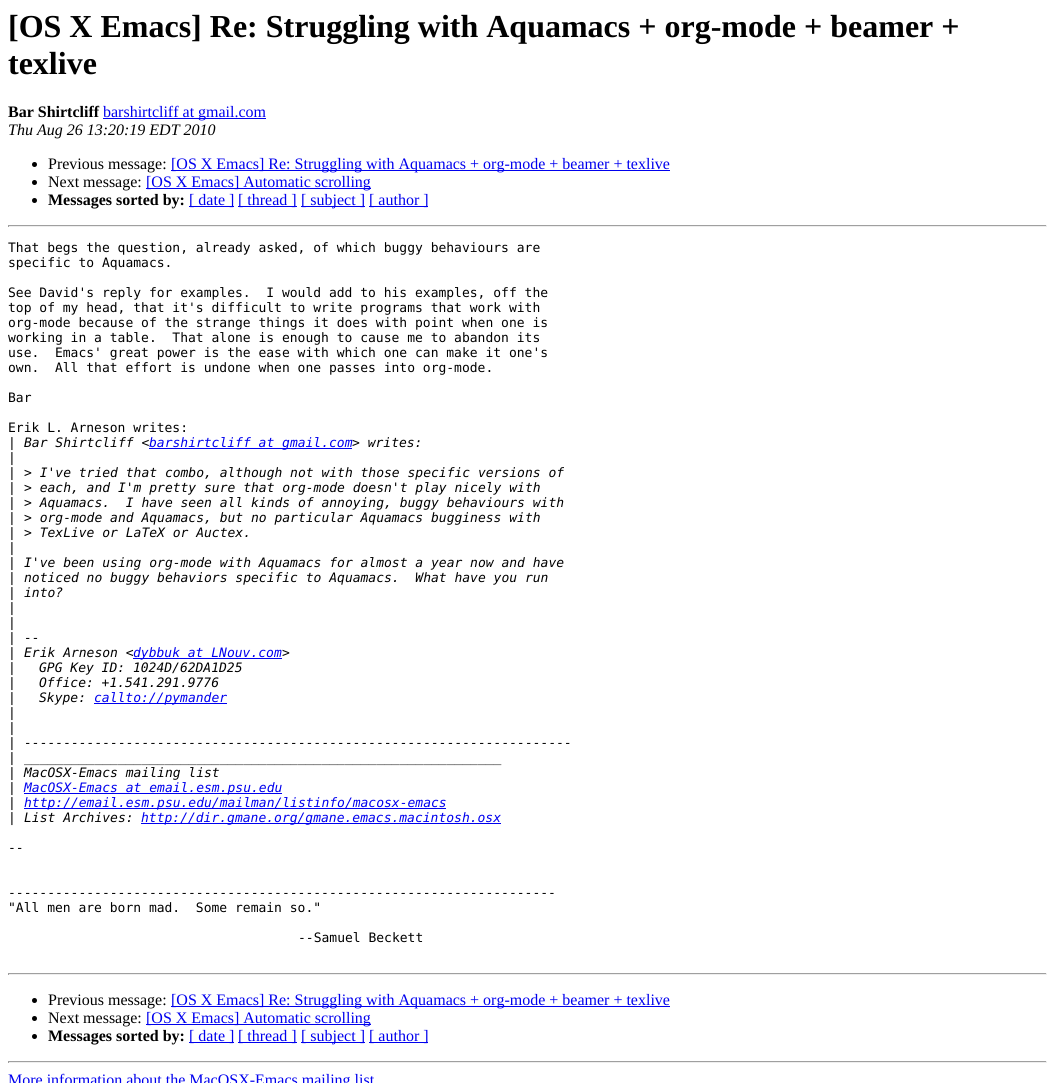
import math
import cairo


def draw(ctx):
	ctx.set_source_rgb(1, 1, 1)
	ctx.paint()
	ctx.select_font_face('Liberation Serif', cairo.FONT_SLANT_NORMAL, cairo.FONT_WEIGHT_BOLD)
	ctx.set_font_size(32)
	ctx.set_source_rgb(0, 0, 0)
	ctx.move_to(8, 37)
	ctx.show_text('[OS X Emacs] Re: Struggling with Aquamacs + org-mode + beamer +')
	ctx.move_to(8, 74)
	ctx.show_text('texlive')
	ctx.set_font_size(16)
	ctx.move_to(8, 117)
	ctx.show_text('Bar Shirtcliff')
	ctx.set_source_rgb(0, 0, 0.933)
	ctx.rectangle(103, 118, 163, 1)
	ctx.fill()
	ctx.select_font_face('Liberation Serif')
	ctx.move_to(103, 117)
	ctx.show_text('barshirtcliff at gmail.com')
	ctx.select_font_face('Liberation Serif', cairo.FONT_SLANT_ITALIC)
	ctx.set_source_rgb(0, 0, 0)
	ctx.move_to(8, 135)
	ctx.show_text('Thu Aug 26 13:20:19 EDT 2010')
	ctx.new_path()
	ctx.arc(34.5, 164.5, 2.5, 0, 2 * math.pi)
	ctx.fill()
	ctx.select_font_face('Liberation Serif')
	ctx.move_to(48, 169)
	ctx.show_text('Previous message:')
	ctx.set_source_rgb(0, 0, 0.933)
	ctx.rectangle(171, 170, 499, 1)
	ctx.fill()
	ctx.move_to(171, 169)
	ctx.show_text('[OS X Emacs] Re: Struggling with Aquamacs + org-mode + beamer + texlive')
	ctx.set_source_rgb(0, 0, 0)
	ctx.new_path()
	ctx.arc(34.5, 182.5, 2.5, 0, 2 * math.pi)
	ctx.fill()
	ctx.move_to(48, 187)
	ctx.show_text('Next message:')
	ctx.set_source_rgb(0, 0, 0.933)
	ctx.rectangle(146, 188, 225, 1)
	ctx.fill()
	ctx.move_to(146, 187)
	ctx.show_text('[OS X Emacs] Automatic scrolling')
	ctx.set_source_rgb(0, 0, 0)
	ctx.new_path()
	ctx.arc(34.5, 200.5, 2.5, 0, 2 * math.pi)
	ctx.fill()
	ctx.select_font_face('Liberation Serif', cairo.FONT_SLANT_NORMAL, cairo.FONT_WEIGHT_BOLD)
	ctx.move_to(48, 205)
	ctx.show_text('Messages sorted by:')
	ctx.set_source_rgb(0, 0, 0.933)
	ctx.rectangle(189, 206, 45, 1)
	ctx.fill()
	ctx.select_font_face('Liberation Serif')
	ctx.move_to(189, 205)
	ctx.show_text('[ date ]')
	ctx.rectangle(238, 206, 59, 1)
	ctx.fill()
	ctx.move_to(238, 205)
	ctx.show_text('[ thread ]')
	ctx.rectangle(301, 206, 64, 1)
	ctx.fill()
	ctx.move_to(301, 205)
	ctx.show_text('[ subject ]')
	ctx.rectangle(369, 206, 59, 1)
	ctx.fill()
	ctx.move_to(369, 205)
	ctx.show_text('[ author ]')
	ctx.set_source_rgb(0.624, 0.624, 0.624)
	ctx.rectangle(8, 225, 1039, 1)
	ctx.fill()
	ctx.set_source_rgb(0.933, 0.933, 0.933)
	ctx.rectangle(1046, 225, 1, 2)
	ctx.rectangle(8, 226, 1039, 1)
	ctx.fill()
	ctx.set_source_rgb(0.624, 0.624, 0.624)
	ctx.rectangle(8, 225, 1, 2)
	ctx.fill()
	ctx.select_font_face('DejaVu Sans Mono')
	ctx.set_font_size(13)
	ctx.set_source_rgb(0, 0, 0)
	for x, y, s in [
		(8, 252, 'That begs the question, already asked, of which buggy behaviours are'),
		(8, 267, 'specific to Aquamacs.'),
		(8, 297, 'See David\'s reply for examples.  I would add to his examples, off the'),
		(8, 312, 'top of my head, that it\'s difficult to write programs that work with'),
		(8, 327, 'org-mode because of the strange things it does with point when one is'),
		(8, 342, 'working in a table.  That alone is enough to cause me to abandon its'),
		(8, 357, 'use.  Emacs\' great power is the ease with which one can make it one\'s'),
		(8, 372, 'own.  All that effort is undone when one passes into org-mode.'),
		(8, 402, 'Bar'),
		(8, 432, 'Erik L. Arneson writes:'),
		(8, 447, '|'),
	]:
		ctx.move_to(x, y)
		ctx.show_text(s)
	ctx.select_font_face('DejaVu Sans Mono', cairo.FONT_SLANT_ITALIC)
	ctx.move_to(24, 447)
	ctx.show_text('Bar Shirtcliff <')
	ctx.set_source_rgb(0, 0, 0.933)
	ctx.rectangle(149, 448, 203, 1)
	ctx.fill()
	ctx.move_to(149, 447)
	ctx.show_text('barshirtcliff at gmail.com')
	ctx.set_source_rgb(0, 0, 0)
	ctx.move_to(352, 447)
	ctx.show_text('> writes:')
	ctx.select_font_face('DejaVu Sans Mono')
	ctx.move_to(8, 462)
	ctx.show_text('|')
	ctx.move_to(8, 477)
	ctx.show_text('|')
	ctx.select_font_face('DejaVu Sans Mono', cairo.FONT_SLANT_ITALIC)
	ctx.move_to(24, 477)
	ctx.show_text('> I\'ve tried that combo, although not with those specific versions of')
	ctx.select_font_face('DejaVu Sans Mono')
	ctx.move_to(8, 492)
	ctx.show_text('|')
	ctx.select_font_face('DejaVu Sans Mono', cairo.FONT_SLANT_ITALIC)
	ctx.move_to(24, 492)
	ctx.show_text('> each, and I\'m pretty sure that org-mode doesn\'t play nicely with')
	ctx.select_font_face('DejaVu Sans Mono')
	ctx.move_to(8, 507)
	ctx.show_text('|')
	ctx.select_font_face('DejaVu Sans Mono', cairo.FONT_SLANT_ITALIC)
	ctx.move_to(24, 507)
	ctx.show_text('> Aquamacs.  I have seen all kinds of annoying, buggy behaviours with')
	ctx.select_font_face('DejaVu Sans Mono')
	ctx.move_to(8, 522)
	ctx.show_text('|')
	ctx.select_font_face('DejaVu Sans Mono', cairo.FONT_SLANT_ITALIC)
	ctx.move_to(24, 522)
	ctx.show_text('> org-mode and Aquamacs, but no particular Aquamacs bugginess with')
	ctx.select_font_face('DejaVu Sans Mono')
	ctx.move_to(8, 537)
	ctx.show_text('|')
	ctx.select_font_face('DejaVu Sans Mono', cairo.FONT_SLANT_ITALIC)
	ctx.move_to(24, 537)
	ctx.show_text('> TexLive or LaTeX or Auctex.')
	ctx.select_font_face('DejaVu Sans Mono')
	ctx.move_to(8, 552)
	ctx.show_text('|')
	ctx.move_to(8, 567)
	ctx.show_text('|')
	ctx.select_font_face('DejaVu Sans Mono', cairo.FONT_SLANT_ITALIC)
	ctx.move_to(24, 567)
	ctx.show_text('I\'ve been using org-mode with Aquamacs for almost a year now and have')
	ctx.select_font_face('DejaVu Sans Mono')
	ctx.move_to(8, 582)
	ctx.show_text('|')
	ctx.select_font_face('DejaVu Sans Mono', cairo.FONT_SLANT_ITALIC)
	ctx.move_to(24, 582)
	ctx.show_text('noticed no buggy behaviors specific to Aquamacs.  What have you run')
	ctx.select_font_face('DejaVu Sans Mono')
	ctx.move_to(8, 597)
	ctx.show_text('|')
	ctx.select_font_face('DejaVu Sans Mono', cairo.FONT_SLANT_ITALIC)
	ctx.move_to(24, 597)
	ctx.show_text('into?')
	ctx.select_font_face('DejaVu Sans Mono')
	for x, y, s in [
		(8, 612, '|'),
		(8, 627, '|'),
		(8, 642, '|'),
	]:
		ctx.move_to(x, y)
		ctx.show_text(s)
	ctx.select_font_face('DejaVu Sans Mono', cairo.FONT_SLANT_ITALIC)
	ctx.move_to(24, 642)
	ctx.show_text('--')
	ctx.select_font_face('DejaVu Sans Mono')
	ctx.move_to(8, 657)
	ctx.show_text('|')
	ctx.select_font_face('DejaVu Sans Mono', cairo.FONT_SLANT_ITALIC)
	ctx.move_to(24, 657)
	ctx.show_text('Erik Arneson <')
	ctx.set_source_rgb(0, 0, 0.933)
	ctx.rectangle(133, 658, 149, 1)
	ctx.fill()
	ctx.move_to(133, 657)
	ctx.show_text('dybbuk at LNouv.com')
	ctx.set_source_rgb(0, 0, 0)
	ctx.move_to(282, 657)
	ctx.show_text('>')
	ctx.select_font_face('DejaVu Sans Mono')
	ctx.move_to(8, 672)
	ctx.show_text('|')
	ctx.select_font_face('DejaVu Sans Mono', cairo.FONT_SLANT_ITALIC)
	ctx.move_to(39, 672)
	ctx.show_text('GPG Key ID: 1024D/62DA1D25')
	ctx.select_font_face('DejaVu Sans Mono')
	ctx.move_to(8, 687)
	ctx.show_text('|')
	ctx.select_font_face('DejaVu Sans Mono', cairo.FONT_SLANT_ITALIC)
	ctx.move_to(39, 687)
	ctx.show_text('Office: +1.541.291.9776')
	ctx.select_font_face('DejaVu Sans Mono')
	ctx.move_to(8, 702)
	ctx.show_text('|')
	ctx.select_font_face('DejaVu Sans Mono', cairo.FONT_SLANT_ITALIC)
	ctx.move_to(39, 702)
	ctx.show_text('Skype:')
	ctx.set_source_rgb(0, 0, 0.933)
	ctx.rectangle(94, 703, 133, 1)
	ctx.fill()
	ctx.move_to(94, 702)
	ctx.show_text('callto://pymander')
	ctx.select_font_face('DejaVu Sans Mono')
	ctx.set_source_rgb(0, 0, 0)
	for x, y, s in [
		(8, 717, '|'),
		(8, 732, '|'),
		(8, 747, '|'),
	]:
		ctx.move_to(x, y)
		ctx.show_text(s)
	ctx.select_font_face('DejaVu Sans Mono', cairo.FONT_SLANT_ITALIC)
	ctx.move_to(24, 747)
	ctx.show_text('----------------------------------------------------------------------')
	ctx.select_font_face('DejaVu Sans Mono')
	ctx.move_to(8, 762)
	ctx.show_text('|')
	ctx.select_font_face('DejaVu Sans Mono', cairo.FONT_SLANT_ITALIC)
	ctx.move_to(24, 762)
	ctx.show_text('_____________________________________________________________')
	ctx.select_font_face('DejaVu Sans Mono')
	ctx.move_to(8, 777)
	ctx.show_text('|')
	ctx.select_font_face('DejaVu Sans Mono', cairo.FONT_SLANT_ITALIC)
	ctx.move_to(24, 777)
	ctx.show_text('MacOSX-Emacs mailing list')
	ctx.select_font_face('DejaVu Sans Mono')
	ctx.move_to(8, 792)
	ctx.show_text('|')
	ctx.set_source_rgb(0, 0, 0.933)
	ctx.rectangle(24, 793, 258, 1)
	ctx.fill()
	ctx.select_font_face('DejaVu Sans Mono', cairo.FONT_SLANT_ITALIC)
	ctx.move_to(24, 792)
	ctx.show_text('MacOSX-Emacs at email.esm.psu.edu')
	ctx.select_font_face('DejaVu Sans Mono')
	ctx.set_source_rgb(0, 0, 0)
	ctx.move_to(8, 807)
	ctx.show_text('|')
	ctx.set_source_rgb(0, 0, 0.933)
	ctx.rectangle(24, 808, 422, 1)
	ctx.fill()
	ctx.select_font_face('DejaVu Sans Mono', cairo.FONT_SLANT_ITALIC)
	ctx.move_to(24, 807)
	ctx.show_text('http://email.esm.psu.edu/mailman/listinfo/macosx-emacs')
	ctx.select_font_face('DejaVu Sans Mono')
	ctx.set_source_rgb(0, 0, 0)
	ctx.move_to(8, 822)
	ctx.show_text('|')
	ctx.select_font_face('DejaVu Sans Mono', cairo.FONT_SLANT_ITALIC)
	ctx.move_to(24, 822)
	ctx.show_text('List Archives:')
	ctx.set_source_rgb(0, 0, 0.933)
	ctx.rectangle(141, 823, 360, 1)
	ctx.fill()
	ctx.move_to(141, 822)
	ctx.show_text('http://dir.gmane.org/gmane.emacs.macintosh.osx')
	ctx.select_font_face('DejaVu Sans Mono')
	ctx.set_source_rgb(0, 0, 0)
	for x, y, s in [
		(8, 852, '--'),
		(8, 897, '----------------------------------------------------------------------'),
		(8, 912, '"All men are born mad.  Some remain so."'),
		(298, 942, '--Samuel Beckett'),
	]:
		ctx.move_to(x, y)
		ctx.show_text(s)
	ctx.set_source_rgb(0.624, 0.624, 0.624)
	ctx.rectangle(8, 973, 1039, 1)
	ctx.fill()
	ctx.set_source_rgb(0.933, 0.933, 0.933)
	ctx.rectangle(1046, 973, 1, 2)
	ctx.rectangle(8, 974, 1039, 1)
	ctx.fill()
	ctx.set_source_rgb(0.624, 0.624, 0.624)
	ctx.rectangle(8, 973, 1, 2)
	ctx.fill()
	ctx.set_source_rgb(0, 0, 0)
	ctx.arc(34.5, 1000.5, 2.5, 0, 2 * math.pi)
	ctx.fill()
	ctx.select_font_face('Liberation Serif')
	ctx.set_font_size(16)
	ctx.move_to(48, 1005)
	ctx.show_text('Previous message:')
	ctx.set_source_rgb(0, 0, 0.933)
	ctx.rectangle(171, 1006, 499, 1)
	ctx.fill()
	ctx.move_to(171, 1005)
	ctx.show_text('[OS X Emacs] Re: Struggling with Aquamacs + org-mode + beamer + texlive')
	ctx.set_source_rgb(0, 0, 0)
	ctx.new_path()
	ctx.arc(34.5, 1018.5, 2.5, 0, 2 * math.pi)
	ctx.fill()
	ctx.move_to(48, 1023)
	ctx.show_text('Next message:')
	ctx.set_source_rgb(0, 0, 0.933)
	ctx.rectangle(146, 1024, 225, 1)
	ctx.fill()
	ctx.move_to(146, 1023)
	ctx.show_text('[OS X Emacs] Automatic scrolling')
	ctx.set_source_rgb(0, 0, 0)
	ctx.new_path()
	ctx.arc(34.5, 1036.5, 2.5, 0, 2 * math.pi)
	ctx.fill()
	ctx.select_font_face('Liberation Serif', cairo.FONT_SLANT_NORMAL, cairo.FONT_WEIGHT_BOLD)
	ctx.move_to(48, 1041)
	ctx.show_text('Messages sorted by:')
	ctx.set_source_rgb(0, 0, 0.933)
	ctx.rectangle(189, 1042, 45, 1)
	ctx.fill()
	ctx.select_font_face('Liberation Serif')
	ctx.move_to(189, 1041)
	ctx.show_text('[ date ]')
	ctx.rectangle(238, 1042, 59, 1)
	ctx.fill()
	ctx.move_to(238, 1041)
	ctx.show_text('[ thread ]')
	ctx.rectangle(301, 1042, 64, 1)
	ctx.fill()
	ctx.move_to(301, 1041)
	ctx.show_text('[ subject ]')
	ctx.rectangle(369, 1042, 59, 1)
	ctx.fill()
	ctx.move_to(369, 1041)
	ctx.show_text('[ author ]')
	ctx.set_source_rgb(0.624, 0.624, 0.624)
	ctx.rectangle(8, 1061, 1039, 1)
	ctx.fill()
	ctx.set_source_rgb(0.933, 0.933, 0.933)
	ctx.rectangle(1046, 1061, 1, 2)
	ctx.rectangle(8, 1062, 1039, 1)
	ctx.fill()
	ctx.set_source_rgb(0.624, 0.624, 0.624)
	ctx.rectangle(8, 1061, 1, 2)
	ctx.fill()
	ctx.set_source_rgb(0, 0, 0.933)
	ctx.move_to(8, 1085)
	ctx.show_text('More information about the MacOSX-Emacs mailing list')


surface = cairo.ImageSurface(cairo.FORMAT_RGB24, 1055, 1083)
ctx = cairo.Context(surface)
options = cairo.FontOptions()
options.set_hint_metrics(cairo.HINT_METRICS_OFF)
options.set_hint_style(cairo.HINT_STYLE_NONE)
ctx.set_font_options(options)
ctx.set_miter_limit(4)
draw(ctx)
surface.write_to_png('image.png')
